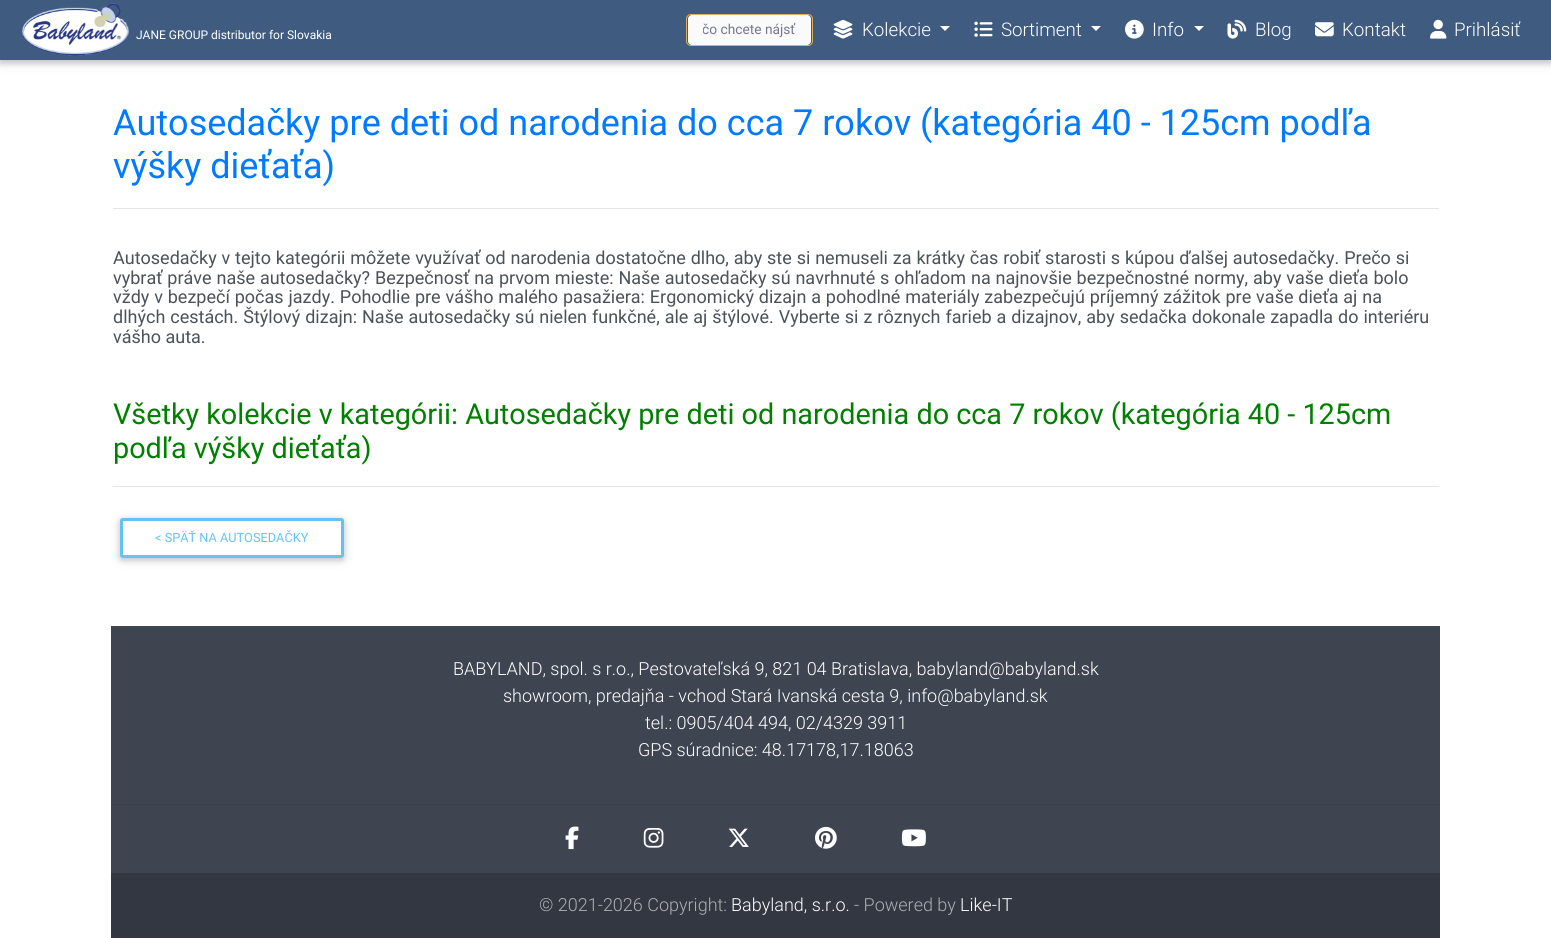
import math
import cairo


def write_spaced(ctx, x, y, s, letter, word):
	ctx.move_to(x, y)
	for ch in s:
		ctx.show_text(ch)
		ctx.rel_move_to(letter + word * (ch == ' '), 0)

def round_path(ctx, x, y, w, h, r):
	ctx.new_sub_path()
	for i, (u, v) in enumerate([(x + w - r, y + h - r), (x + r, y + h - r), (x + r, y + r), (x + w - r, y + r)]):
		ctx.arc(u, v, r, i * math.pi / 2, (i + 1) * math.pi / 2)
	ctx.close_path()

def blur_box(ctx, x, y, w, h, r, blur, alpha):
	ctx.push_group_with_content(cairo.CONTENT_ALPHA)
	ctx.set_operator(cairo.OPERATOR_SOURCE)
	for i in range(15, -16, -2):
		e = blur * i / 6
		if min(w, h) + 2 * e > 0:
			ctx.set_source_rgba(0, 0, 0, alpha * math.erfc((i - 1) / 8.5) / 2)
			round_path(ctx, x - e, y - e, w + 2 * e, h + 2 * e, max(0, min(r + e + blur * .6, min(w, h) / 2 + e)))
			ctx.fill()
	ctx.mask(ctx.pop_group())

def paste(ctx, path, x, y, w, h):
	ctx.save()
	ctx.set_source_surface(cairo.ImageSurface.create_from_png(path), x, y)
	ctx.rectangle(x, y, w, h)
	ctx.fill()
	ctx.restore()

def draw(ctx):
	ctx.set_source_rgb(1, 1, 1)
	ctx.paint()
	ctx.set_source_rgb(0, 0, 0)
	blur_box(ctx, 0, 3, 1551, 60, 0, 6, 0.12)
	blur_box(ctx, 0, 3, 1551, 60, 0, 3, 0.16)
	ctx.set_source_rgb(0.247, 0.361, 0.502)
	ctx.rectangle(0, 0, 1551, 60)
	ctx.fill()
	paste(ctx, 'media/1.png', 22, 3, 107, 53)
	ctx.select_font_face('Roboto')
	ctx.set_font_size(12)
	ctx.set_source_rgb(1, 1, 1)
	ctx.move_to(136, 39)
	ctx.show_text('JANE GROUP distributor for Slovakia')
	ctx.set_source_rgb(0.98, 0.98, 0.98)
	round_path(ctx, 688, 15, 123, 30, 4)
	ctx.fill()
	round_path(ctx, 686.5, 14.5, 126, 31, 4.5)
	ctx.set_source_rgb(0.867, 0.69, 0.361)
	ctx.set_line_width(1)
	ctx.stroke()
	ctx.save()
	ctx.rectangle(703, 21, 93, 17)
	ctx.clip()
	ctx.set_font_size(13.75)
	ctx.set_source_rgb(0.467, 0.463, 0.584)
	ctx.move_to(702, 34)
	ctx.show_text('čo chcete nájsť')
	ctx.restore()
	paste(ctx, 'media/2.png', 833, 19, 20, 20)
	ctx.select_font_face('Roboto Light')
	ctx.set_font_size(18.75)
	ctx.set_source_rgb(1, 1, 1)
	ctx.move_to(862, 36)
	ctx.show_text('Kolekcie')
	ctx.new_path()
	ctx.move_to(940, 26)
	ctx.line_to(950, 26)
	ctx.line_to(945, 31)
	ctx.close_path()
	ctx.fill()
	paste(ctx, 'media/3.png', 974, 21, 19, 16)
	ctx.move_to(1001, 36)
	ctx.show_text('Sortiment')
	ctx.new_path()
	ctx.move_to(1091, 26)
	ctx.line_to(1101, 26)
	ctx.line_to(1096, 31)
	ctx.close_path()
	ctx.fill()
	paste(ctx, 'media/4.png', 1125, 19, 19, 20)
	ctx.move_to(1152, 36)
	ctx.show_text('Info')
	ctx.new_path()
	ctx.move_to(1194, 26)
	ctx.line_to(1204, 26)
	ctx.line_to(1199, 31)
	ctx.close_path()
	ctx.fill()
	paste(ctx, 'media/5.png', 1227, 19, 20, 20)
	ctx.move_to(1255, 36)
	ctx.show_text('Blog')
	paste(ctx, 'media/6.png', 1315, 22, 19, 15)
	ctx.move_to(1342, 36)
	ctx.show_text('Kontakt')
	paste(ctx, 'media/7.png', 1430, 19, 17, 20)
	ctx.move_to(1454, 36)
	ctx.show_text('Prihlásiť')
	ctx.select_font_face('Roboto')
	ctx.set_font_size(36)
	ctx.set_source_rgb(0, 0.482, 1)
	ctx.move_to(113, 135)
	ctx.show_text('Autosedačky pre deti od narodenia do cca 7 rokov (kategória 40 - 125cm podľa')
	ctx.move_to(113, 178)
	ctx.show_text('výšky dieťaťa)')
	ctx.set_source_rgb(0.902, 0.902, 0.902)
	ctx.rectangle(113, 208, 1326, 1)
	ctx.fill()
	ctx.set_font_size(18)
	ctx.set_source_rgb(0.298, 0.322, 0.341)
	for x, y, s in [
		(113, 264, 'Autosedačky v tejto kategórii môžete využívať od narodenia dostatočne dlho, aby ste si nemuseli za krátky čas robiť starosti s kúpou ďalšej autosedačky. Prečo si'),
		(113, 284, 'vybrať práve naše autosedačky? Bezpečnosť na prvom mieste: Naše autosedačky sú navrhnuté s ohľadom na najnovšie bezpečnostné normy, aby vaše dieťa bolo'),
		(113, 303, 'vždy v bezpečí počas jazdy. Pohodlie pre vášho malého pasažiera: Ergonomický dizajn a pohodlné materiály zabezpečujú príjemný zážitok pre vaše dieťa aj na'),
	]:
		write_spaced(ctx, x, y, s, 0, 0.4)
	write_spaced(ctx, 113, 323, 'dlhých cestách. Štýlový dizajn: Naše autosedačky sú nielen funkčné, ale aj štýlové. Vyberte si z rôznych farieb a dizajnov, aby sedačka dokonale zapadla do interiéru', 0, 0.5)
	ctx.move_to(113, 343)
	ctx.show_text('vášho auta.')
	ctx.set_font_size(28.8)
	ctx.set_source_rgb(0, 0.502, 0)
	ctx.move_to(113, 424)
	ctx.show_text('Všetky kolekcie v kategórii: Autosedačky pre deti od narodenia do cca 7 rokov (kategória 40 - 125cm')
	ctx.move_to(113, 458)
	ctx.show_text('podľa výšky dieťaťa)')
	ctx.set_source_rgb(0.902, 0.902, 0.902)
	ctx.rectangle(113, 486, 1326, 1)
	ctx.fill()
	ctx.save()
	ctx.set_fill_rule(cairo.FILL_RULE_EVEN_ODD)
	ctx.new_path()
	ctx.move_to(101, 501)
	ctx.line_to(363, 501)
	ctx.line_to(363, 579)
	ctx.line_to(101, 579)
	ctx.close_path()
	ctx.move_to(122.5, 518)
	ctx.line_to(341.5, 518)
	ctx.curve_to(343, 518, 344, 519, 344, 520.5)
	ctx.line_to(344, 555.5)
	ctx.curve_to(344, 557, 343, 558, 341.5, 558)
	ctx.line_to(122.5, 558)
	ctx.curve_to(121, 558, 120, 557, 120, 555.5)
	ctx.line_to(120, 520.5)
	ctx.curve_to(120, 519, 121, 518, 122.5, 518)
	ctx.close_path()
	ctx.clip()
	ctx.set_source_rgb(0, 0, 0)
	blur_box(ctx, 120, 520, 224, 40, 2.5, 6, 0.12)
	ctx.restore()
	ctx.save()
	ctx.set_fill_rule(cairo.FILL_RULE_EVEN_ODD)
	ctx.new_path()
	ctx.move_to(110, 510)
	ctx.line_to(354, 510)
	ctx.line_to(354, 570)
	ctx.line_to(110, 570)
	ctx.close_path()
	ctx.move_to(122.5, 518)
	ctx.line_to(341.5, 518)
	ctx.curve_to(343, 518, 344, 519, 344, 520.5)
	ctx.line_to(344, 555.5)
	ctx.curve_to(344, 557, 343, 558, 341.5, 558)
	ctx.line_to(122.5, 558)
	ctx.curve_to(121, 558, 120, 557, 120, 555.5)
	ctx.line_to(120, 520.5)
	ctx.curve_to(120, 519, 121, 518, 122.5, 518)
	ctx.close_path()
	ctx.clip()
	ctx.set_source_rgb(0, 0, 0)
	blur_box(ctx, 120, 520, 224, 40, 2.5, 3, 0.16)
	ctx.restore()
	round_path(ctx, 121.5, 519.5, 221, 37, 1)
	ctx.set_source_rgb(0.392, 0.765, 0.941)
	ctx.set_line_width(3)
	ctx.stroke()
	ctx.set_font_size(12.75)
	ctx.move_to(155, 542)
	ctx.show_text('< SPÄŤ NA AUTOSEDAČKY')
	ctx.set_source_rgb(0.243, 0.271, 0.318)
	ctx.rectangle(111, 626, 1329, 247)
	ctx.fill()
	ctx.select_font_face('Roboto Light')
	ctx.set_font_size(18)
	ctx.set_source_rgb(1, 1, 1)
	for x, y, s in [
		(453, 675, 'BABYLAND, spol. s r.o., Pestovateľská 9, 821 04 Bratislava, babyland@babyland.sk'),
		(503, 702, 'showroom, predajňa - vchod Stará Ivanská cesta 9, info@babyland.sk'),
		(645, 729, 'tel.: 0905/404 494, 02/4329 3911'),
		(638, 756, 'GPS súradnice: 48.17178,17.18063'),
	]:
		ctx.move_to(x, y)
		ctx.show_text(s)
	ctx.set_source_rgb(0.22, 0.243, 0.286)
	ctx.rectangle(111, 804, 1329, 1)
	ctx.fill()
	paste(ctx, 'media/8.png', 565, 826, 14, 24)
	paste(ctx, 'media/9.png', 643, 828, 21, 20)
	paste(ctx, 'media/10.png', 728, 828, 21, 19)
	paste(ctx, 'media/11.png', 815, 826, 22, 23)
	paste(ctx, 'media/12.png', 901, 829, 25, 18)
	ctx.set_source_rgb(0.196, 0.216, 0.255)
	ctx.rectangle(111, 873, 1329, 65)
	ctx.fill()
	ctx.set_source_rgb(0.678, 0.686, 0.702)
	ctx.move_to(539, 911)
	ctx.show_text('© 2021-2026 Copyright:')
	ctx.set_source_rgb(1, 1, 1)
	ctx.move_to(731, 911)
	ctx.show_text('Babyland, s.r.o.')
	ctx.set_source_rgb(0.678, 0.686, 0.702)
	ctx.move_to(854, 911)
	ctx.show_text('- Powered by')
	ctx.set_source_rgb(1, 1, 1)
	ctx.move_to(960, 911)
	ctx.show_text('Like-IT')


surface = cairo.ImageSurface(cairo.FORMAT_RGB24, 1551, 938)
ctx = cairo.Context(surface)
options = cairo.FontOptions()
options.set_hint_metrics(cairo.HINT_METRICS_OFF)
options.set_hint_style(cairo.HINT_STYLE_NONE)
ctx.set_font_options(options)
ctx.set_miter_limit(4)
draw(ctx)
surface.write_to_png('image.png')
